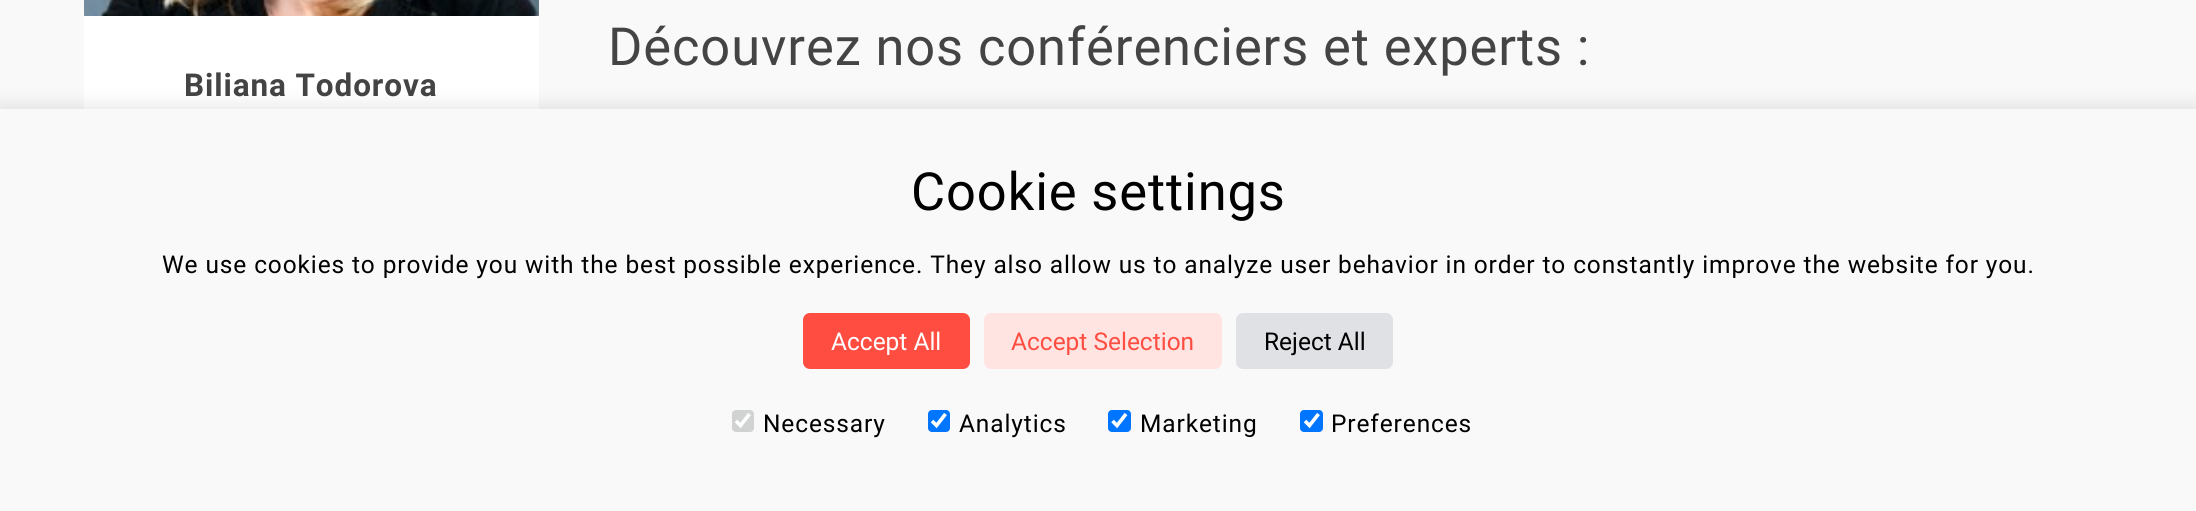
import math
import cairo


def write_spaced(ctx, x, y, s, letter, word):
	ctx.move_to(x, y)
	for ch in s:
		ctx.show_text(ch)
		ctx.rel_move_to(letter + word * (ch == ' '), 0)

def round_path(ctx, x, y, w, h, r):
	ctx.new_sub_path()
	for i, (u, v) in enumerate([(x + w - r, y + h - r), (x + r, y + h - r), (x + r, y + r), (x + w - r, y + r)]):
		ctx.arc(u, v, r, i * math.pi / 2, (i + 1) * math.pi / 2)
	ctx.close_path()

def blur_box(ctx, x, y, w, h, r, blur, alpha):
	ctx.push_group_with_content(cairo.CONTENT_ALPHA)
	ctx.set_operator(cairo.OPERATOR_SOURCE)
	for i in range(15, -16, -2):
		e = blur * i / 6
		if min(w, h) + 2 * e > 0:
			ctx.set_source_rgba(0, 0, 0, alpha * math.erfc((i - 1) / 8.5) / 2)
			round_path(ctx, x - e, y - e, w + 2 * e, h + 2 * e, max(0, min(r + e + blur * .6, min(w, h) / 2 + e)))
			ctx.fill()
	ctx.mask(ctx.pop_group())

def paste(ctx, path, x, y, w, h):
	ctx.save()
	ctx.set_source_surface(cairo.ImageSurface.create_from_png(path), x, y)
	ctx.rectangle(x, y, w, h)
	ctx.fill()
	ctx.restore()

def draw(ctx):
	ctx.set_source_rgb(0.973, 0.973, 0.973)
	ctx.paint()
	ctx.select_font_face('Roboto')
	ctx.set_font_size(52.5)
	ctx.set_source_rgb(0.267, 0.267, 0.267)
	write_spaced(ctx, 608, 65, 'Découvrez nos conférenciers et experts :', 0.88, 0)
	ctx.set_source_rgb(1, 1, 1)
	ctx.rectangle(84, 16, 455, 93)
	ctx.fill()
	paste(ctx, 'media/1.png', 84, 0, 455, 16)
	ctx.select_font_face('Roboto', cairo.FONT_SLANT_NORMAL, cairo.FONT_WEIGHT_BOLD)
	ctx.set_font_size(31.5)
	ctx.set_source_rgb(0.267, 0.267, 0.267)
	write_spaced(ctx, 184, 96, 'Biliana Todorova', 0.88, 0)
	ctx.set_source_rgb(0, 0, 0)
	blur_box(ctx, 0, 105, 2196, 403, 0, 9, 0.1)
	ctx.set_source_rgb(0.973, 0.976, 0.98)
	ctx.rectangle(0, 109, 2196, 402)
	ctx.fill()
	ctx.select_font_face('Roboto')
	ctx.set_font_size(52.5)
	ctx.set_source_rgb(0, 0, 0)
	write_spaced(ctx, 911, 210, 'Cookie settings', 0.88, 0)
	ctx.set_font_size(24.5)
	write_spaced(ctx, 162, 273, 'We use cookies to provide you with the best possible experience. They also allow us to analyze user behavior in order to constantly improve the website for you.', 0.88, 0)
	ctx.set_source_rgb(1, 0.302, 0.255)
	round_path(ctx, 803, 313, 167, 56, 7)
	ctx.fill()
	ctx.set_source_rgb(1, 1, 1)
	ctx.move_to(831, 350)
	ctx.show_text('Accept All')
	ctx.set_source_rgb(1, 0.894, 0.886)
	round_path(ctx, 984, 313, 238, 56, 7)
	ctx.fill()
	ctx.set_source_rgb(1, 0.302, 0.255)
	ctx.move_to(1011, 350)
	ctx.show_text('Accept Selection')
	ctx.set_source_rgb(0.875, 0.882, 0.898)
	round_path(ctx, 1236, 313, 157, 56, 7)
	ctx.fill()
	ctx.set_source_rgb(0, 0, 0)
	ctx.move_to(1264, 350)
	ctx.show_text('Reject All')
	ctx.set_source_rgb(0.82, 0.824, 0.824)
	round_path(ctx, 732, 410, 22, 22, 4)
	ctx.fill()
	ctx.new_path()
	ctx.move_to(736, 421)
	ctx.line_to(740.5, 425.5)
	ctx.line_to(749.5, 414)
	ctx.set_source_rgb(1, 1, 1)
	ctx.set_line_width(3.6)
	ctx.stroke()
	ctx.set_source_rgb(0, 0, 0)
	write_spaced(ctx, 763, 432, 'Necessary', 0.88, 0)
	ctx.set_source_rgb(0, 0.459, 1)
	round_path(ctx, 928, 410, 22, 22, 4)
	ctx.fill()
	ctx.new_path()
	ctx.move_to(932, 421)
	ctx.line_to(936.5, 425.5)
	ctx.line_to(945.5, 414)
	ctx.set_source_rgb(1, 1, 1)
	ctx.stroke()
	ctx.set_source_rgb(0, 0, 0)
	write_spaced(ctx, 959, 432, 'Analytics', 0.88, 0)
	ctx.set_source_rgb(0, 0.459, 1)
	round_path(ctx, 1108, 410, 23, 22, 4)
	ctx.fill()
	ctx.new_path()
	ctx.move_to(1112.5, 421)
	ctx.line_to(1117, 425.5)
	ctx.line_to(1126, 414)
	ctx.set_source_rgb(1, 1, 1)
	ctx.stroke()
	ctx.set_source_rgb(0, 0, 0)
	write_spaced(ctx, 1140, 432, 'Marketing', 0.88, 0)
	ctx.set_source_rgb(0, 0.459, 1)
	round_path(ctx, 1300, 410, 23, 22, 4)
	ctx.fill()
	ctx.new_path()
	ctx.move_to(1305, 421)
	ctx.line_to(1309.5, 425.5)
	ctx.line_to(1318.5, 414)
	ctx.set_source_rgb(1, 1, 1)
	ctx.stroke()
	ctx.set_source_rgb(0, 0, 0)
	write_spaced(ctx, 1331, 432, 'Preferences', 0.88, 0)


surface = cairo.ImageSurface(cairo.FORMAT_RGB24, 2196, 511)
ctx = cairo.Context(surface)
options = cairo.FontOptions()
options.set_hint_metrics(cairo.HINT_METRICS_OFF)
options.set_hint_style(cairo.HINT_STYLE_NONE)
ctx.set_font_options(options)
ctx.set_miter_limit(4)
draw(ctx)
surface.write_to_png('image.png')
